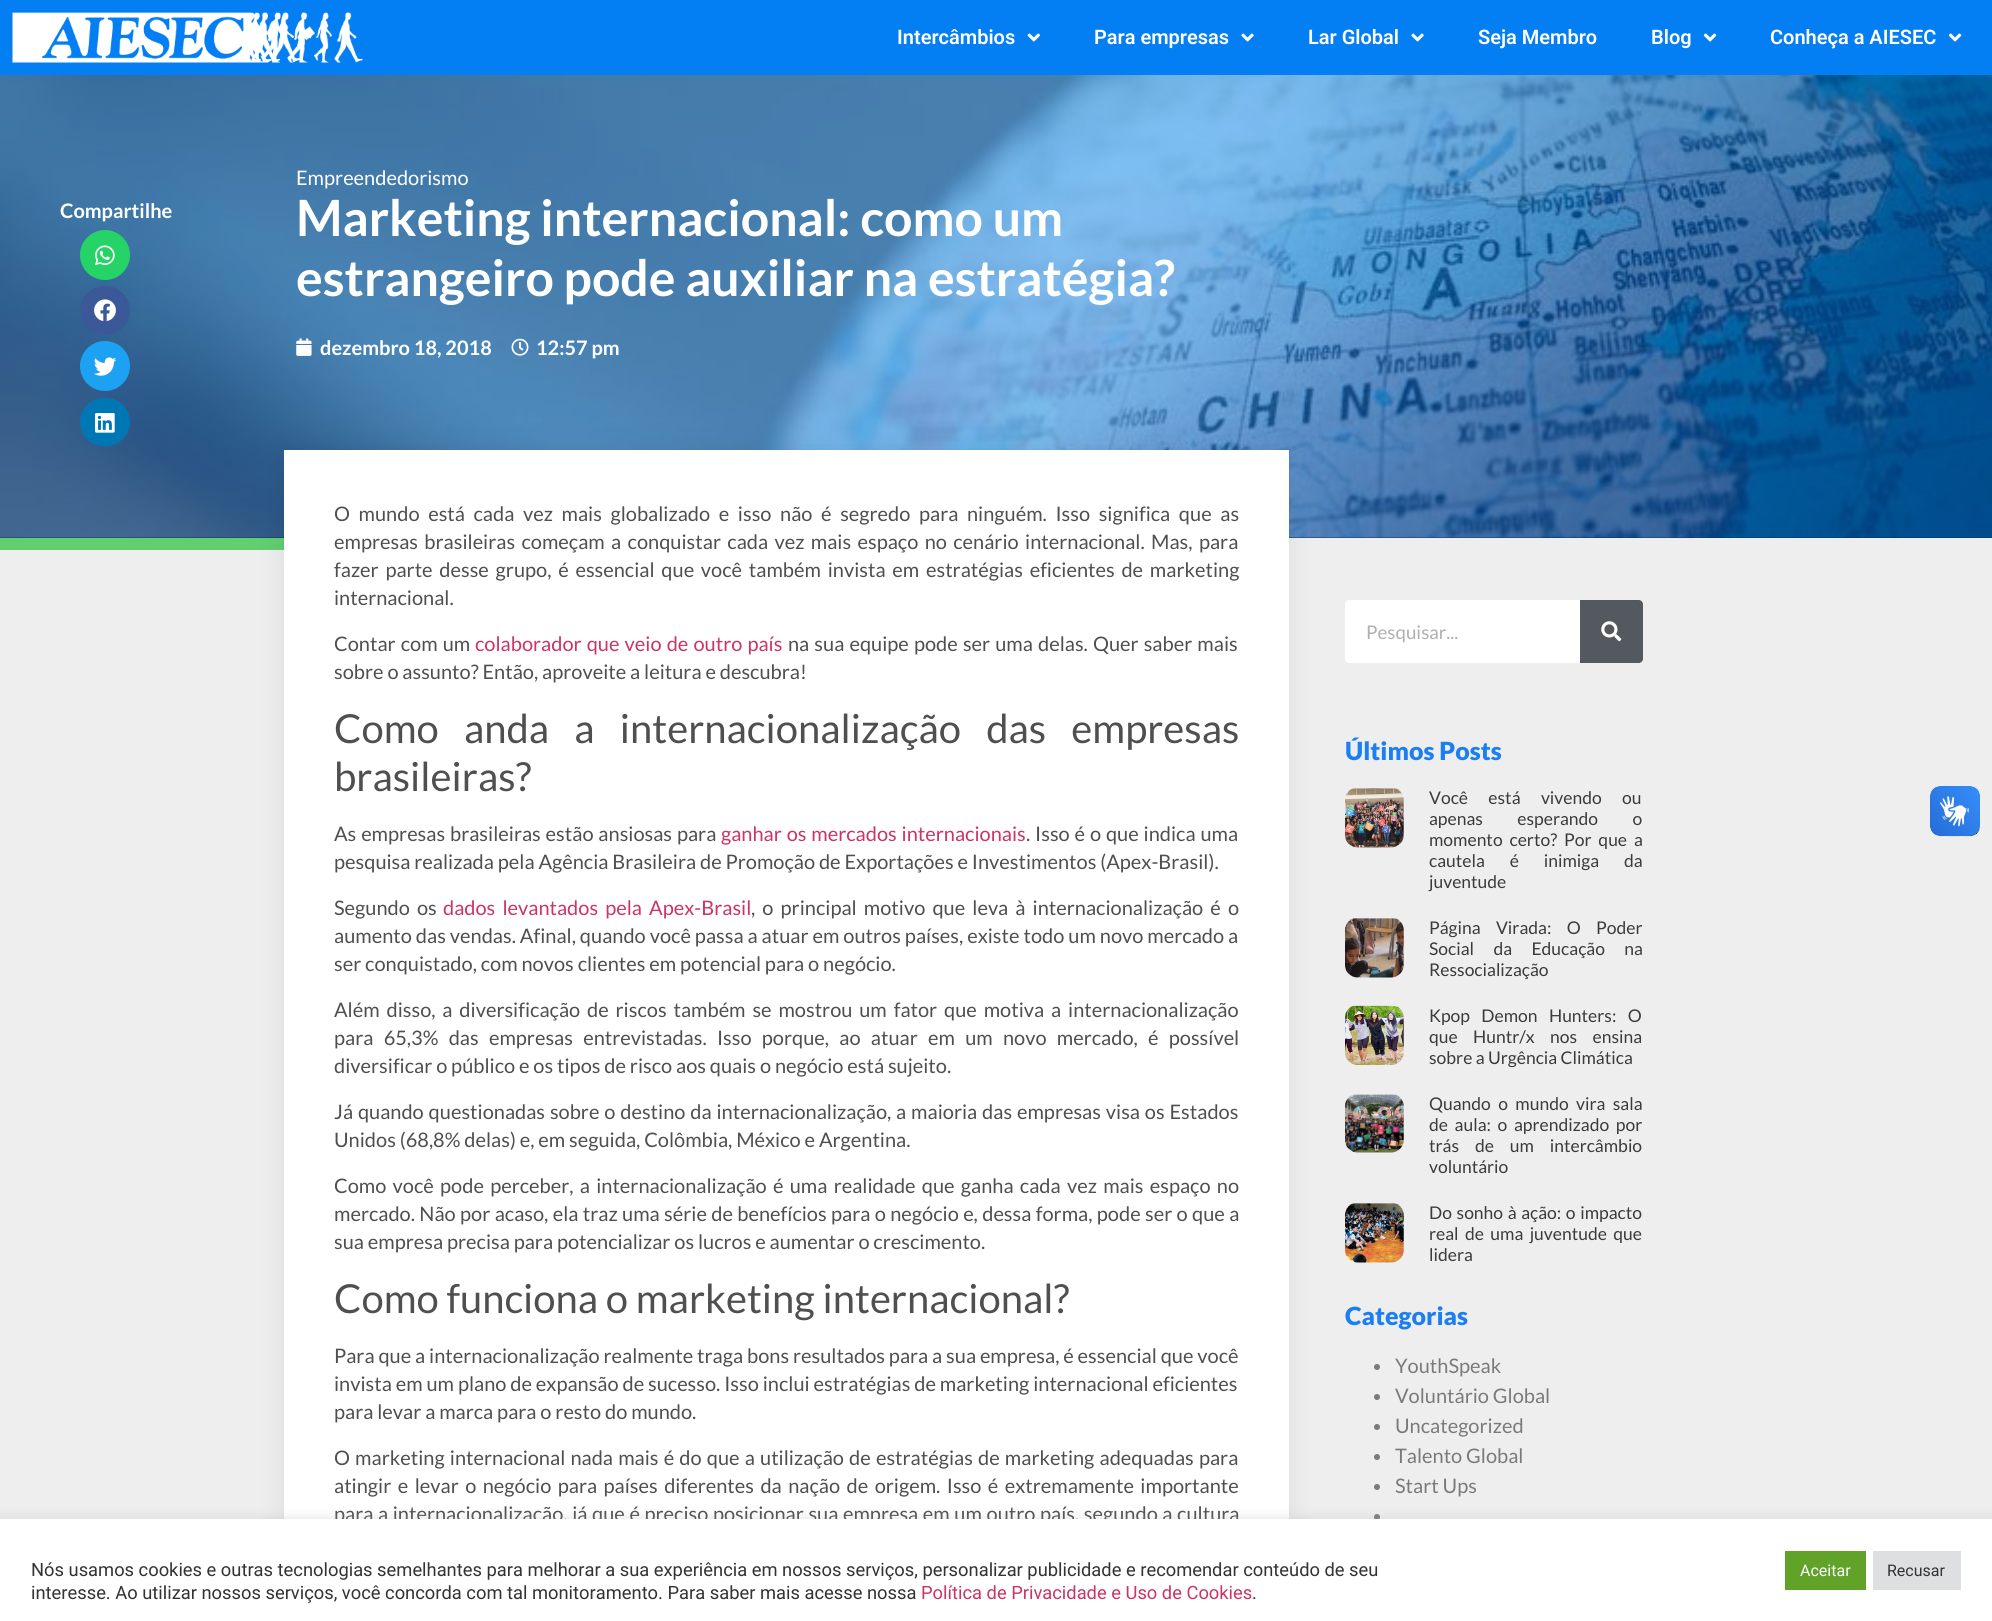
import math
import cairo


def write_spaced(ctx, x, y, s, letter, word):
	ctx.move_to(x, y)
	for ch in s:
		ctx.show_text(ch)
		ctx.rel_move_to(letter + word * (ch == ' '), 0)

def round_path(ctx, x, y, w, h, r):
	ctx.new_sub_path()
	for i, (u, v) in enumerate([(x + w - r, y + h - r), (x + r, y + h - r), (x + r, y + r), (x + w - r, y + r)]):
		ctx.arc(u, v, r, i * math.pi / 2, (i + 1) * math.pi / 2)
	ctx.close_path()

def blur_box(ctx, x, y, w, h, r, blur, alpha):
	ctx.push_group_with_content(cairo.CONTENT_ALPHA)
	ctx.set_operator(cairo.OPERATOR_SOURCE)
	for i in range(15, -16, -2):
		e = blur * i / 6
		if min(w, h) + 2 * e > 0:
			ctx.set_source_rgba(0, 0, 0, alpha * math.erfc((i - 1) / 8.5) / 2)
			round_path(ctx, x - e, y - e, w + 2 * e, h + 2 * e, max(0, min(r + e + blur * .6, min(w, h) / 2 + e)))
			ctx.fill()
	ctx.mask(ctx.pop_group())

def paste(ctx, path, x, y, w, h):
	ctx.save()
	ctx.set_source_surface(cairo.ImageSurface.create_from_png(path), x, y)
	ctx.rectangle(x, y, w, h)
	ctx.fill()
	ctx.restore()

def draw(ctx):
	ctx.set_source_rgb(0.933, 0.933, 0.933)
	ctx.paint()
	ctx.set_source_rgb(0.012, 0.494, 0.953)
	ctx.rectangle(0, 0, 1992, 75)
	ctx.fill()
	paste(ctx, 'media/1.png', 12, 12, 351, 51)
	ctx.select_font_face('Roboto SemiBold')
	ctx.set_font_size(20)
	ctx.set_source_rgb(1, 1, 1)
	ctx.move_to(897, 44)
	ctx.show_text('Intercâmbios')
	paste(ctx, 'media/2.png', 1027, 33, 13, 9)
	ctx.move_to(1094, 44)
	ctx.show_text('Para empresas')
	paste(ctx, 'media/3.png', 1241, 33, 13, 9)
	ctx.move_to(1308, 44)
	ctx.show_text('Lar Global')
	paste(ctx, 'media/3.png', 1411, 33, 13, 9)
	ctx.move_to(1478, 44)
	ctx.show_text('Seja Membro')
	ctx.move_to(1651, 44)
	ctx.show_text('Blog')
	paste(ctx, 'media/4.png', 1703, 33, 14, 9)
	ctx.move_to(1770, 44)
	ctx.show_text('Conheça a AIESEC')
	paste(ctx, 'media/4.png', 1948, 33, 14, 9)
	ctx.set_source_rgb(0, 0.231, 0.451)
	ctx.rectangle(0, 537, 1992, 1)
	ctx.fill()
	paste(ctx, 'media/9.png', 0, 75, 1992, 463)
	ctx.select_font_face('Lato', cairo.FONT_SLANT_NORMAL, cairo.FONT_WEIGHT_BOLD)
	ctx.set_source_rgb(1, 1, 1)
	ctx.move_to(60, 218)
	ctx.show_text('Compartilhe')
	ctx.set_source_rgb(0.145, 0.827, 0.4)
	ctx.new_path()
	ctx.arc(105, 255, 25, 0, 2 * math.pi)
	ctx.fill()
	paste(ctx, 'media/5.png', 95, 245, 20, 21)
	ctx.set_source_rgb(0.231, 0.349, 0.596)
	round_path(ctx, 80, 286, 50, 49, 24.5)
	ctx.fill()
	paste(ctx, 'media/6.png', 94, 299, 22, 22)
	ctx.set_source_rgb(0.114, 0.631, 0.949)
	ctx.arc(105, 366, 25, 0, 2 * math.pi)
	ctx.fill()
	paste(ctx, 'media/7.png', 94, 357, 23, 19)
	ctx.set_source_rgb(0, 0.467, 0.71)
	round_path(ctx, 80, 398, 50, 48, 24)
	ctx.fill()
	paste(ctx, 'media/8.png', 95, 413, 20, 20)
	ctx.select_font_face('Lato')
	ctx.set_source_rgb(1, 1, 1)
	ctx.move_to(296, 185)
	ctx.show_text('Empreendedorismo')
	ctx.select_font_face('Lato', cairo.FONT_SLANT_NORMAL, cairo.FONT_WEIGHT_BOLD)
	ctx.set_font_size(50)
	ctx.move_to(296, 236)
	ctx.show_text('Marketing internacional: como um')
	ctx.move_to(296, 296)
	ctx.show_text('estrangeiro pode auxiliar na estratégia?')
	paste(ctx, 'media/10.png', 296, 338, 16, 18)
	ctx.set_font_size(20)
	ctx.move_to(320, 355)
	ctx.show_text('dezembro 18, 2018')
	paste(ctx, 'media/11.png', 511, 338, 18, 18)
	ctx.move_to(536, 355)
	ctx.show_text('12:57 pm')
	ctx.set_source_rgb(0.38, 0.808, 0.439)
	ctx.rectangle(0, 538, 284, 12)
	ctx.fill()
	ctx.set_source_rgb(0, 0, 0)
	blur_box(ctx, 284, 450, 1005, 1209, 0, 12.5, 0.09)
	ctx.set_source_rgb(1, 1, 1)
	ctx.rectangle(284, 450, 1005, 1069)
	ctx.fill()
	ctx.select_font_face('Lato')
	ctx.set_source_rgb(0.31, 0.31, 0.31)
	write_spaced(ctx, 334, 521, 'O mundo está cada vez mais globalizado e isso não é segredo para ninguém. Isso significa que as', 0, 4.75)
	write_spaced(ctx, 334, 549, 'empresas brasileiras começam a conquistar cada vez mais espaço no cenário internacional. Mas, para', 0, 2.5)
	write_spaced(ctx, 334, 577, 'fazer parte desse grupo, é essencial que você também invista em estratégias eficientes de marketing', 0, 2.9)
	ctx.move_to(334, 605)
	ctx.show_text('internacional.')
	write_spaced(ctx, 334, 651, 'Contar com um', 0, 1.25)
	ctx.set_source_rgb(0.8, 0.2, 0.4)
	write_spaced(ctx, 475, 651, 'colaborador que veio de outro país', 0, 1.25)
	ctx.set_source_rgb(0.31, 0.31, 0.31)
	write_spaced(ctx, 788, 651, 'na sua equipe pode ser uma delas. Quer saber mais', 0, 1.25)
	ctx.move_to(334, 679)
	ctx.show_text('sobre o assunto? Então, aproveite a leitura e descubra!')
	ctx.set_font_size(40)
	write_spaced(ctx, 334, 743, 'Como anda a internacionalização das empresas', 0, 17.5)
	ctx.move_to(334, 791)
	ctx.show_text('brasileiras?')
	ctx.set_font_size(20)
	write_spaced(ctx, 334, 841, 'As empresas brasileiras estão ansiosas para', 0, 1)
	ctx.set_source_rgb(0.8, 0.2, 0.4)
	write_spaced(ctx, 721, 841, 'ganhar os mercados internacionais', 0, 1)
	ctx.set_source_rgb(0.31, 0.31, 0.31)
	write_spaced(ctx, 1026, 841, '. Isso é o que indica uma', 0, 1)
	ctx.move_to(334, 869)
	ctx.show_text('pesquisa realizada pela Agência Brasileira de Promoção de Exportações e Investimentos (Apex-Brasil).')
	write_spaced(ctx, 334, 915, 'Segundo os', 0, 3.25)
	ctx.set_source_rgb(0.8, 0.2, 0.4)
	write_spaced(ctx, 443, 915, 'dados levantados pela Apex-Brasil', 0, 3.25)
	ctx.set_source_rgb(0.31, 0.31, 0.31)
	write_spaced(ctx, 751, 915, ', o principal motivo que leva à internacionalização é o', 0, 3.25)
	write_spaced(ctx, 334, 943, 'aumento das vendas. Afinal, quando você passa a atuar em outros países, existe todo um novo mercado a', 0, 0.1)
	ctx.move_to(334, 971)
	ctx.show_text('ser conquistado, com novos clientes em potencial para o negócio.')
	write_spaced(ctx, 334, 1017, 'Além disso, a diversificação de riscos também se mostrou um fator que motiva a internacionalização', 0, 3)
	write_spaced(ctx, 334, 1045, 'para 65,3% das empresas entrevistadas. Isso porque, ao atuar em um novo mercado, é possível', 0, 6.4)
	ctx.move_to(334, 1073)
	ctx.show_text('diversificar o público e os tipos de risco aos quais o negócio está sujeito.')
	write_spaced(ctx, 334, 1119, 'Já quando questionadas sobre o destino da internacionalização, a maioria das empresas visa os Estados', 0, 1)
	ctx.move_to(334, 1147)
	ctx.show_text('Unidos (68,8% delas) e, em seguida, Colômbia, México e Argentina.')
	write_spaced(ctx, 334, 1193, 'Como você pode perceber, a internacionalização é uma realidade que ganha cada vez mais espaço no', 0, 2.4)
	write_spaced(ctx, 334, 1221, 'mercado. Não por acaso, ela traz uma série de benefícios para o negócio e, dessa forma, pode ser o que a', 0, 0.5)
	ctx.move_to(334, 1249)
	ctx.show_text('sua empresa precisa para potencializar os lucros e aumentar o crescimento.')
	ctx.set_font_size(40)
	ctx.move_to(334, 1313)
	ctx.show_text('Como funciona o marketing internacional?')
	ctx.set_font_size(20)
	for x, y, s in [
		(334, 1363, 'Para que a internacionalização realmente traga bons resultados para a sua empresa, é essencial que você'),
		(334, 1391, 'invista em um plano de expansão de sucesso. Isso inclui estratégias de marketing internacional eficientes'),
		(334, 1419, 'para levar a marca para o resto do mundo.'),
	]:
		ctx.move_to(x, y)
		ctx.show_text(s)
	write_spaced(ctx, 334, 1465, 'O marketing internacional nada mais é do que a utilização de estratégias de marketing adequadas para', 0, 1.3)
	write_spaced(ctx, 334, 1493, 'atingir e levar o negócio para países diferentes da nação de origem. Isso é extremamente importante', 0, 2.6)
	write_spaced(ctx, 334, 1521, 'para a internacionalização, já que é preciso posicionar sua empresa em um outro país, segundo a cultura', 0, 0.75)
	ctx.set_source_rgb(1, 1, 1)
	round_path(ctx, 1345, 600, 298, 63, 4)
	ctx.fill()
	ctx.set_font_size(18.75)
	ctx.set_source_rgb(0.686, 0.686, 0.686)
	ctx.move_to(1366, 639)
	ctx.show_text('Pesquisar...')
	ctx.set_source_rgb(0.329, 0.349, 0.373)
	ctx.new_path()
	ctx.move_to(1580, 600)
	ctx.line_to(1639, 600)
	ctx.curve_to(1641, 600, 1643, 602, 1643, 604)
	ctx.line_to(1643, 659)
	ctx.curve_to(1643, 661, 1641, 663, 1639, 663)
	ctx.line_to(1580, 663)
	ctx.close_path()
	ctx.fill()
	paste(ctx, 'media/12.png', 1601, 621, 21, 21)
	ctx.select_font_face('Lato Black')
	ctx.set_font_size(25)
	ctx.set_source_rgb(0.11, 0.494, 0.953)
	ctx.move_to(1345, 760)
	ctx.show_text('Últimos Posts')
	paste(ctx, 'media/13.png', 1345, 788, 59, 60)
	ctx.select_font_face('Lato')
	ctx.set_font_size(17.5)
	ctx.set_source_rgb(0.231, 0.231, 0.231)
	write_spaced(ctx, 1429, 804, 'Você está vivendo ou', 0, 17)
	write_spaced(ctx, 1429, 825, 'apenas esperando o', 0, 31)
	write_spaced(ctx, 1429, 846, 'momento certo? Por que a', 0, 3.5)
	write_spaced(ctx, 1429, 867, 'cautela é inimiga da', 0, 21.5)
	ctx.move_to(1429, 888)
	ctx.show_text('juventude')
	paste(ctx, 'media/14.png', 1345, 918, 59, 60)
	write_spaced(ctx, 1429, 934, 'Página Virada: O Poder', 0, 12)
	write_spaced(ctx, 1429, 955, 'Social da Educação na', 0, 16)
	ctx.move_to(1429, 976)
	ctx.show_text('Ressocialização')
	paste(ctx, 'media/15.png', 1345, 1005, 59, 60)
	write_spaced(ctx, 1429, 1022, 'Kpop Demon Hunters: O', 0, 8)
	write_spaced(ctx, 1429, 1043, 'que Huntr/x nos ensina', 0, 12)
	ctx.move_to(1429, 1064)
	ctx.show_text('sobre a Urgência Climática')
	paste(ctx, 'media/16.png', 1345, 1094, 59, 59)
	write_spaced(ctx, 1429, 1110, 'Quando o mundo vira sala', 0, 4)
	write_spaced(ctx, 1429, 1131, 'de aula: o aprendizado por', 0, 3.25)
	write_spaced(ctx, 1429, 1152, 'trás de um intercâmbio', 0, 12.5)
	ctx.move_to(1429, 1173)
	ctx.show_text('voluntário')
	paste(ctx, 'media/17.png', 1345, 1203, 59, 60)
	write_spaced(ctx, 1429, 1219, 'Do sonho à ação: o impacto', 0, 1.25)
	write_spaced(ctx, 1429, 1240, 'real de uma juventude que', 0, 3)
	ctx.move_to(1429, 1261)
	ctx.show_text('lidera')
	ctx.select_font_face('Lato Black')
	ctx.set_font_size(25)
	ctx.set_source_rgb(0.11, 0.494, 0.953)
	ctx.move_to(1345, 1325)
	ctx.show_text('Categorias')
	ctx.set_source_rgb(0.478, 0.478, 0.478)
	ctx.new_path()
	ctx.arc(1377, 1367, 3, 0, 2 * math.pi)
	ctx.fill()
	ctx.select_font_face('Lato')
	ctx.set_font_size(20)
	ctx.move_to(1395, 1373)
	ctx.show_text('YouthSpeak')
	ctx.new_path()
	ctx.arc(1377, 1397, 3, 0, 2 * math.pi)
	ctx.fill()
	ctx.move_to(1395, 1403)
	ctx.show_text('Voluntário Global')
	ctx.new_path()
	ctx.arc(1377, 1427, 3, 0, 2 * math.pi)
	ctx.fill()
	ctx.move_to(1395, 1433)
	ctx.show_text('Uncategorized')
	ctx.new_path()
	ctx.arc(1377, 1457, 3, 0, 2 * math.pi)
	ctx.fill()
	ctx.move_to(1395, 1463)
	ctx.show_text('Talento Global')
	ctx.new_path()
	ctx.arc(1377, 1487, 3, 0, 2 * math.pi)
	ctx.fill()
	ctx.move_to(1395, 1493)
	ctx.show_text('Start Ups')
	ctx.new_path()
	ctx.arc(1377, 1517, 3, 0, 2 * math.pi)
	ctx.fill()
	paste(ctx, 'media/18.png', 1930, 786, 50, 51)
	paste(ctx, 'media/19.png', 1930, 786, 50, 50)
	ctx.set_source_rgb(0.675, 0.671, 0.671)
	blur_box(ctx, 0, 1518, 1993, 102, 0, 6, 0.3)
	ctx.set_source_rgb(1, 1, 1)
	ctx.rectangle(0, 1519, 1992, 102)
	ctx.fill()
	ctx.select_font_face('Roboto')
	ctx.set_font_size(18.33)
	ctx.set_source_rgb(0.2, 0.2, 0.2)
	ctx.move_to(31, 1576)
	ctx.show_text('Nós usamos cookies e outras tecnologias semelhantes para melhorar a sua experiência em nossos serviços, personalizar publicidade e recomendar conteúdo de seu')
	ctx.move_to(31, 1599)
	ctx.show_text('interesse. Ao utilizar nossos serviços, você concorda com tal monitoramento. Para saber mais acesse nossa')
	ctx.set_source_rgb(0.8, 0.2, 0.4)
	ctx.move_to(921, 1599)
	ctx.show_text('Política de Privacidade e Uso de Cookies')
	ctx.set_source_rgb(0.2, 0.2, 0.2)
	ctx.move_to(1252, 1599)
	ctx.show_text('.')
	ctx.set_source_rgb(0.38, 0.635, 0.161)
	ctx.rectangle(1785, 1551, 81, 39)
	ctx.fill()
	ctx.set_font_size(16)
	ctx.set_source_rgb(1, 1, 1)
	ctx.move_to(1800, 1576)
	ctx.show_text('Aceitar')
	ctx.set_source_rgb(0.871, 0.875, 0.878)
	ctx.rectangle(1873, 1551, 88, 39)
	ctx.fill()
	ctx.set_source_rgb(0.2, 0.2, 0.2)
	ctx.move_to(1887, 1576)
	ctx.show_text('Recusar')


surface = cairo.ImageSurface(cairo.FORMAT_RGB24, 1992, 1621)
ctx = cairo.Context(surface)
options = cairo.FontOptions()
options.set_hint_metrics(cairo.HINT_METRICS_OFF)
options.set_hint_style(cairo.HINT_STYLE_NONE)
ctx.set_font_options(options)
ctx.set_miter_limit(4)
draw(ctx)
surface.write_to_png('image.png')
